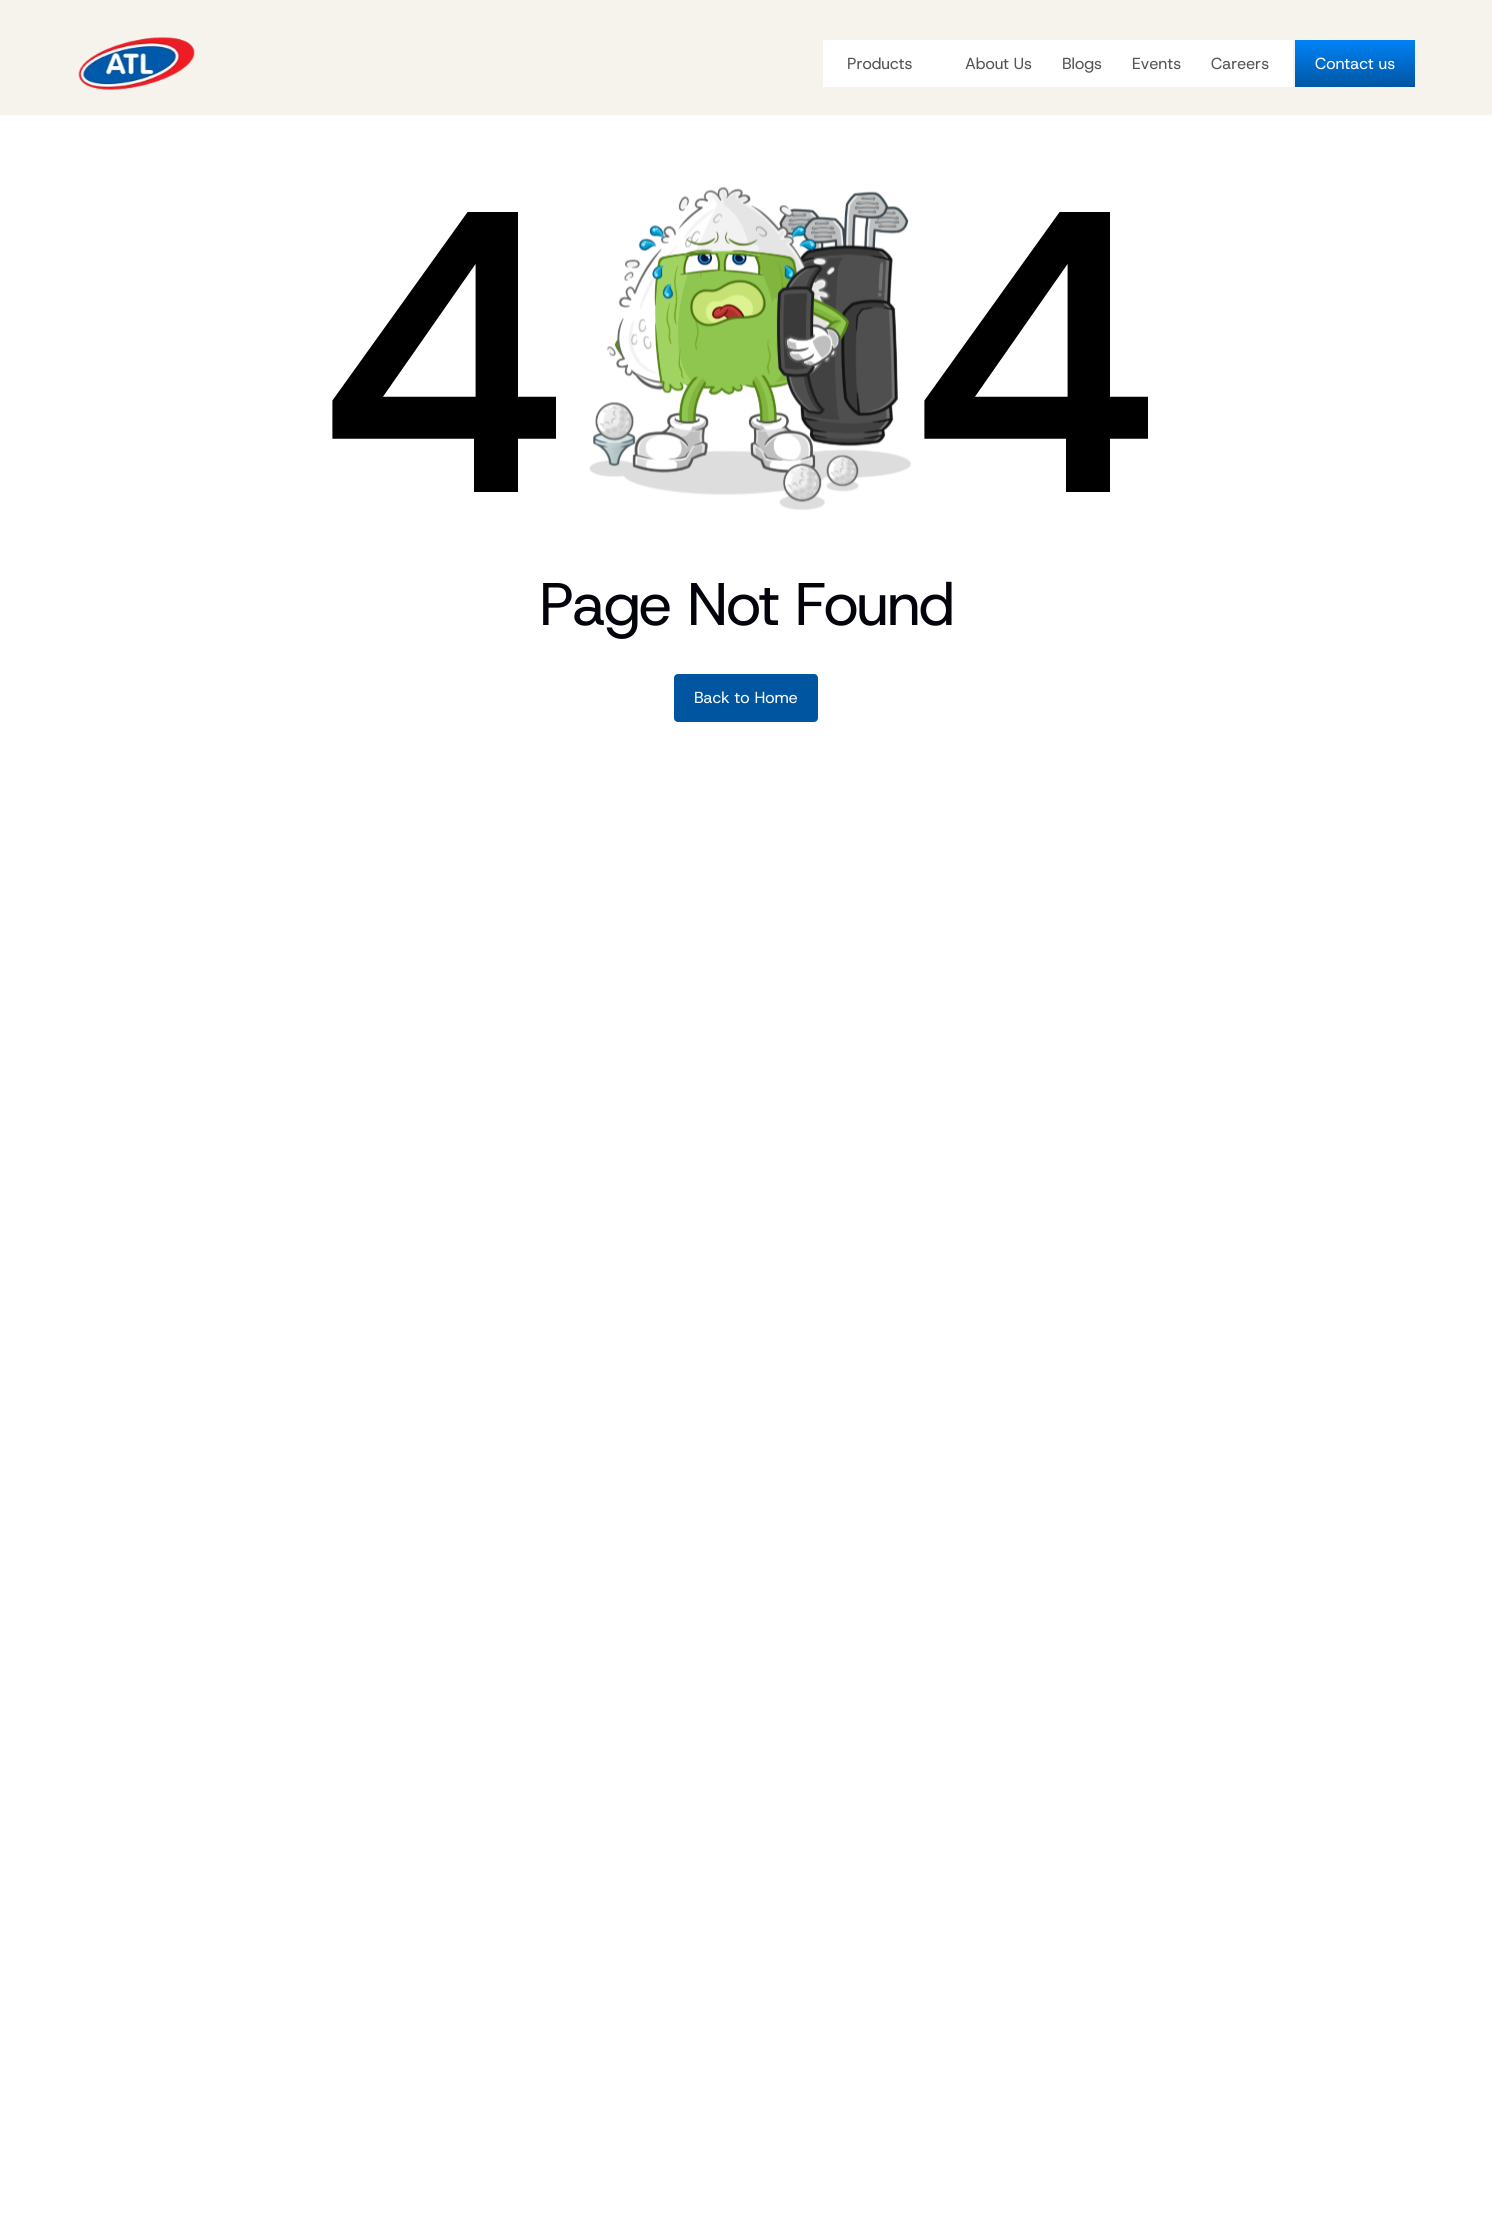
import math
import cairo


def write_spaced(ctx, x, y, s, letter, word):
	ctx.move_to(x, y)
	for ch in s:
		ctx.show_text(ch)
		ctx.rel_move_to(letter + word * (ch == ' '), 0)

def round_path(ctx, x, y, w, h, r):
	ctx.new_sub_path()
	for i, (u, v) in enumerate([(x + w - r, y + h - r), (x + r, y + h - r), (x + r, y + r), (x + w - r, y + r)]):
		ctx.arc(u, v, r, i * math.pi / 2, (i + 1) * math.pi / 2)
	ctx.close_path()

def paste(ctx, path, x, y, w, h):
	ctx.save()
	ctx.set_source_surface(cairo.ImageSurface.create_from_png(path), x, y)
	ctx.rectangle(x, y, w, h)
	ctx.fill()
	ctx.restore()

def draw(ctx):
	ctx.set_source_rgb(1, 1, 1)
	ctx.paint()
	ctx.set_source_rgb(0.961, 0.953, 0.925)
	ctx.rectangle(0, 0, 1492, 115)
	ctx.fill()
	paste(ctx, 'media/1.png', 78, 37, 117, 53)
	ctx.set_source_rgb(1, 1, 1)
	ctx.rectangle(823, 40, 470, 47)
	ctx.fill()
	ctx.select_font_face('Host Grotesk')
	ctx.set_font_size(16)
	ctx.set_source_rgb(0.325, 0.325, 0.345)
	for x, y, s in [
		(847, 69, 'Products'),
		(965, 69, 'About Us'),
		(1062, 69, 'Blogs'),
		(1132, 69, 'Events'),
		(1211, 69, 'Careers'),
	]:
		ctx.move_to(x, y)
		ctx.show_text(s)
	gradient = cairo.LinearGradient(1354, 35, 1355, 88)
	gradient.add_color_stop_rgba(0, 0, 0.529, 1, 1)
	gradient.add_color_stop_rgba(1, 0, 0.333, 0.631, 1)
	ctx.set_source(gradient)
	ctx.rectangle(1295, 40, 120, 47)
	ctx.fill()
	ctx.set_source_rgb(1, 1, 1)
	ctx.move_to(1315, 69)
	ctx.show_text('Contact us')
	paste(ctx, 'media/2.png', 332, 186, 816, 324)
	ctx.set_font_size(60)
	ctx.set_source_rgb(0.012, 0.016, 0.043)
	write_spaced(ctx, 539, 625, 'Page Not Found', -2, 0)
	ctx.set_source_rgb(0, 0.333, 0.631)
	round_path(ctx, 674, 674, 144, 48, 4)
	ctx.fill()
	ctx.set_font_size(16)
	ctx.set_source_rgb(1, 1, 1)
	ctx.move_to(694, 703)
	ctx.show_text('Back to Home')


surface = cairo.ImageSurface(cairo.FORMAT_RGB24, 1492, 2227)
ctx = cairo.Context(surface)
options = cairo.FontOptions()
options.set_hint_metrics(cairo.HINT_METRICS_OFF)
options.set_hint_style(cairo.HINT_STYLE_NONE)
ctx.set_font_options(options)
ctx.set_miter_limit(4)
draw(ctx)
surface.write_to_png('image.png')
